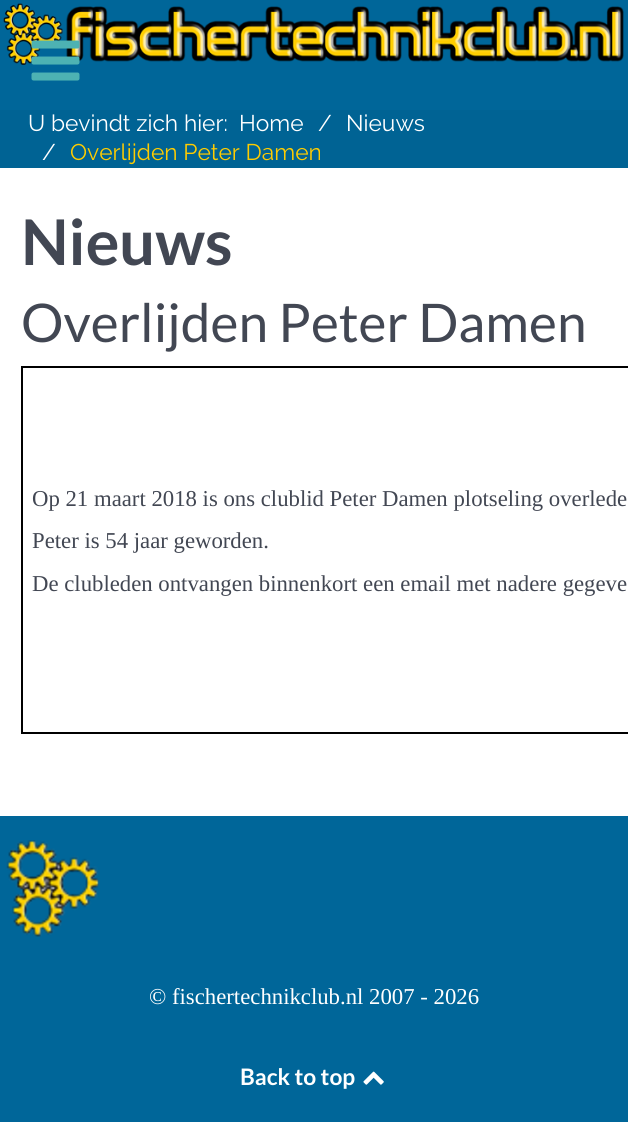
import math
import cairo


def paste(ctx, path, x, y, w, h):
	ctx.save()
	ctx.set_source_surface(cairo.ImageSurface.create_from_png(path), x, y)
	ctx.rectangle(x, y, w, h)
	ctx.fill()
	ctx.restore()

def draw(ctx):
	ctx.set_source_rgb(1, 1, 1)
	ctx.paint()
	ctx.set_source_rgb(0, 0.4, 0.6)
	ctx.rectangle(0, 0, 628, 110)
	ctx.fill()
	paste(ctx, 'media/2.png', 3, 3, 621, 62)
	paste(ctx, 'media/1.png', 31, 40, 49, 41)
	ctx.set_source_rgb(0, 0.388, 0.58)
	ctx.rectangle(0, 110, 628, 58)
	ctx.fill()
	ctx.select_font_face('Raleway')
	ctx.set_font_size(22.75)
	ctx.set_source_rgb(1, 1, 1)
	for x, y, s in [
		(28, 131, 'U bevindt zich hier:'),
		(239, 131, 'Home'),
		(318, 131, '/'),
		(346, 131, 'Nieuws'),
		(42, 160, '/'),
	]:
		ctx.move_to(x, y)
		ctx.show_text(s)
	ctx.set_source_rgb(1, 0.8, 0)
	ctx.move_to(70, 160)
	ctx.show_text('Overlijden Peter Damen')
	ctx.select_font_face('Lato', cairo.FONT_SLANT_NORMAL, cairo.FONT_WEIGHT_BOLD)
	ctx.set_font_size(63)
	ctx.set_source_rgb(0.259, 0.278, 0.325)
	ctx.move_to(21, 265)
	ctx.show_text('Nieuws')
	ctx.select_font_face('Lato')
	ctx.set_font_size(53.25)
	ctx.move_to(21, 342)
	ctx.show_text('Overlijden Peter Damen')
	ctx.set_source_rgb(0, 0, 0)
	ctx.rectangle(21, 366, 607, 2)
	ctx.rectangle(21, 732, 607, 2)
	ctx.rectangle(21, 366, 2, 367)
	ctx.fill()
	ctx.select_font_face('Liberation Serif')
	ctx.set_font_size(22.75)
	ctx.set_source_rgb(0.259, 0.278, 0.325)
	for x, y, s in [
		(32, 506, 'Op 21 maart 2018 is ons clublid Peter Damen plotseling overlede'),
		(32, 548, 'Peter is 54 jaar geworden.'),
		(32, 591, 'De clubleden ontvangen binnenkort een email met nadere gegeve'),
	]:
		ctx.move_to(x, y)
		ctx.show_text(s)
	ctx.set_source_rgb(0, 0.4, 0.6)
	ctx.rectangle(0, 816, 628, 306)
	ctx.fill()
	paste(ctx, 'media/3.png', 6, 840, 93, 97)
	ctx.set_source_rgb(1, 1, 1)
	ctx.move_to(149, 1004)
	ctx.show_text('© fischertechnikclub.nl 2007 - 2026')
	ctx.select_font_face('Lato', cairo.FONT_SLANT_NORMAL, cairo.FONT_WEIGHT_BOLD)
	ctx.move_to(240, 1085)
	ctx.show_text('Back to top')
	paste(ctx, 'media/4.png', 363, 1071, 21, 14)


surface = cairo.ImageSurface(cairo.FORMAT_RGB24, 628, 1122)
ctx = cairo.Context(surface)
options = cairo.FontOptions()
options.set_hint_metrics(cairo.HINT_METRICS_OFF)
options.set_hint_style(cairo.HINT_STYLE_NONE)
ctx.set_font_options(options)
ctx.set_miter_limit(4)
draw(ctx)
surface.write_to_png('image.png')
